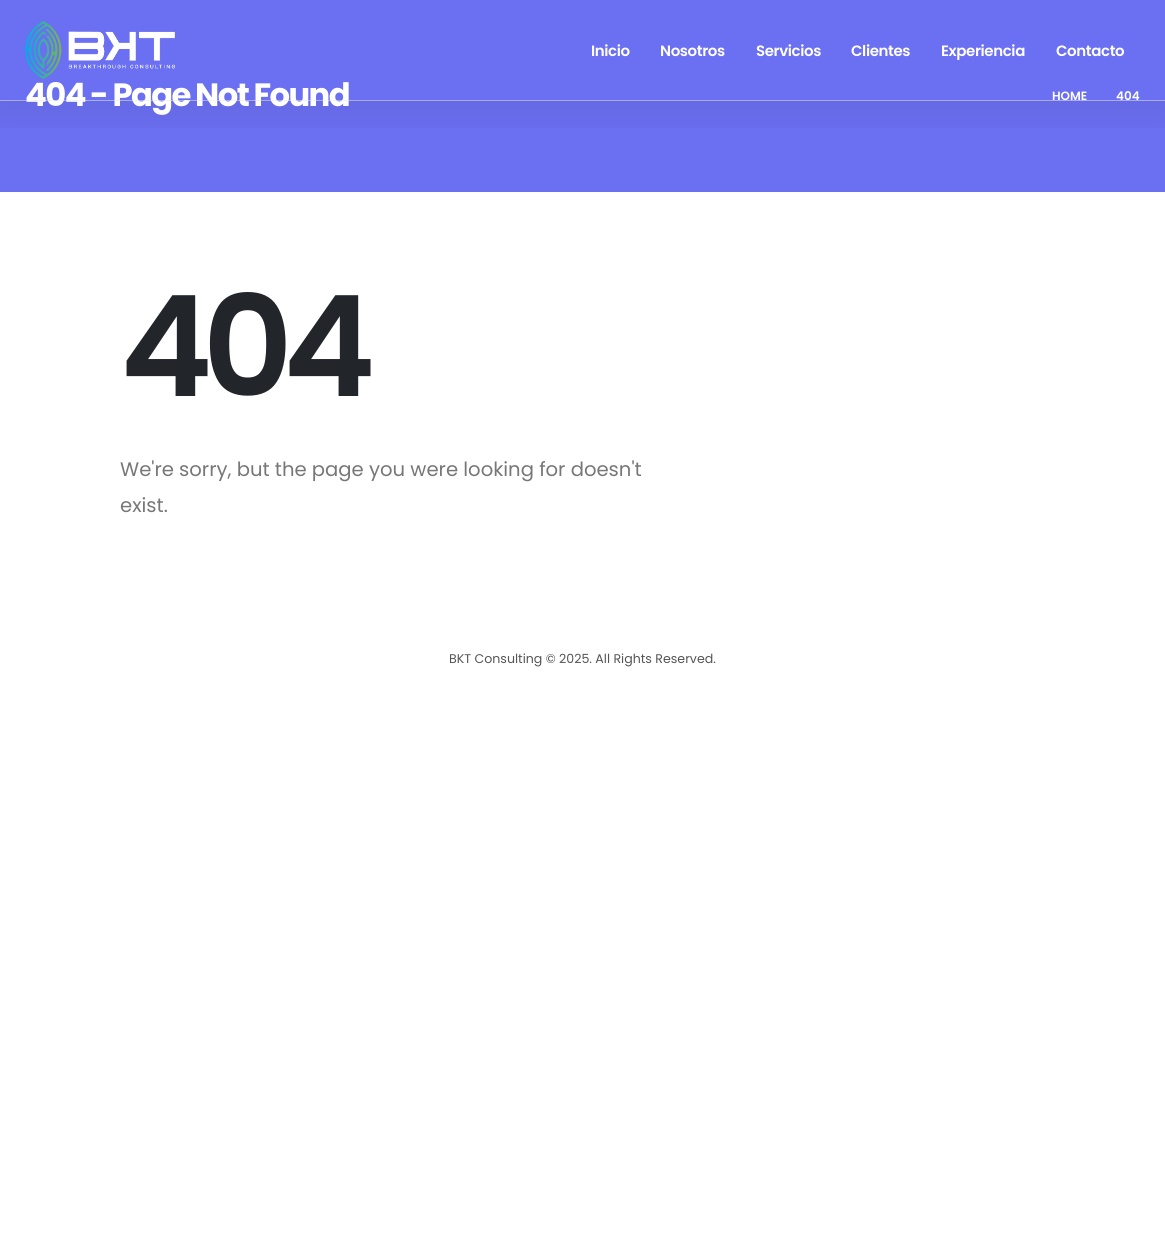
import math
import cairo


def write_spaced(ctx, x, y, s, letter, word):
	ctx.move_to(x, y)
	for ch in s:
		ctx.show_text(ch)
		ctx.rel_move_to(letter + word * (ch == ' '), 0)

def round_path(ctx, x, y, w, h, r):
	ctx.new_sub_path()
	for i, (u, v) in enumerate([(x + w - r, y + h - r), (x + r, y + h - r), (x + r, y + r), (x + w - r, y + r)]):
		ctx.arc(u, v, r, i * math.pi / 2, (i + 1) * math.pi / 2)
	ctx.close_path()

def blur_box(ctx, x, y, w, h, r, blur, alpha):
	ctx.push_group_with_content(cairo.CONTENT_ALPHA)
	ctx.set_operator(cairo.OPERATOR_SOURCE)
	for i in range(15, -16, -2):
		e = blur * i / 6
		if min(w, h) + 2 * e > 0:
			ctx.set_source_rgba(0, 0, 0, alpha * math.erfc((i - 1) / 8.5) / 2)
			round_path(ctx, x - e, y - e, w + 2 * e, h + 2 * e, max(0, min(r + e + blur * .6, min(w, h) / 2 + e)))
			ctx.fill()
	ctx.mask(ctx.pop_group())

def paste(ctx, path, x, y, w, h):
	ctx.save()
	ctx.set_source_surface(cairo.ImageSurface.create_from_png(path), x, y)
	ctx.rectangle(x, y, w, h)
	ctx.fill()
	ctx.restore()

def draw(ctx):
	ctx.set_source_rgb(1, 1, 1)
	ctx.paint()
	ctx.set_source_rgb(0.42, 0.435, 0.945)
	ctx.rectangle(0, 0, 1165, 192)
	ctx.fill()
	ctx.save()
	ctx.rectangle(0, 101, 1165, 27)
	ctx.clip()
	ctx.set_source_rgb(0, 0, 0)
	blur_box(ctx, 0, 12, 1165, 101, 0, 22.5, 0.08)
	ctx.restore()
	ctx.select_font_face('Poppins', cairo.FONT_SLANT_NORMAL, cairo.FONT_WEIGHT_BOLD)
	ctx.set_font_size(32.25)
	ctx.set_source_rgb(1, 1, 1)
	write_spaced(ctx, 25, 106, '404 - Page Not Found', -1.6, 0)
	ctx.select_font_face('Poppins SemiBold')
	ctx.set_font_size(12)
	ctx.move_to(1052, 100)
	ctx.show_text('HOME')
	ctx.set_source_rgba(0.918, 0.918, 0.918, 0.5)
	ctx.rectangle(0, 100, 1165, 1)
	ctx.fill()
	paste(ctx, 'media/1.png', 25, 21, 150, 58)
	ctx.set_font_size(15)
	ctx.set_source_rgb(1, 1, 1)
	for x, y, s in [
		(591, 56, 'Inicio'),
		(660, 56, 'Nosotros'),
		(756, 56, 'Servicios'),
		(851, 56, 'Clientes'),
		(941, 56, 'Experiencia'),
		(1056, 56, 'Contacto'),
	]:
		write_spaced(ctx, x, y, s, -0.4, 0)
	ctx.set_font_size(12)
	ctx.move_to(1116, 100)
	ctx.show_text('404')
	ctx.set_font_size(140)
	ctx.set_source_rgb(0.133, 0.145, 0.161)
	write_spaced(ctx, 120, 396, '404', -10, 0)
	ctx.select_font_face('Poppins')
	ctx.set_font_size(19.6)
	ctx.set_source_rgb(0.467, 0.467, 0.467)
	ctx.move_to(120, 476)
	ctx.show_text('We\'re sorry, but the page you were looking for doesn\'t')
	ctx.move_to(120, 512)
	ctx.show_text('exist.')
	ctx.set_font_size(12.6)
	ctx.set_source_rgb(0.333, 0.333, 0.333)
	ctx.move_to(449, 663)
	ctx.show_text('BKT Consulting © 2025. All Rights Reserved.')


surface = cairo.ImageSurface(cairo.FORMAT_RGB24, 1165, 1251)
ctx = cairo.Context(surface)
options = cairo.FontOptions()
options.set_hint_metrics(cairo.HINT_METRICS_OFF)
options.set_hint_style(cairo.HINT_STYLE_NONE)
ctx.set_font_options(options)
ctx.set_miter_limit(4)
draw(ctx)
surface.write_to_png('image.png')
